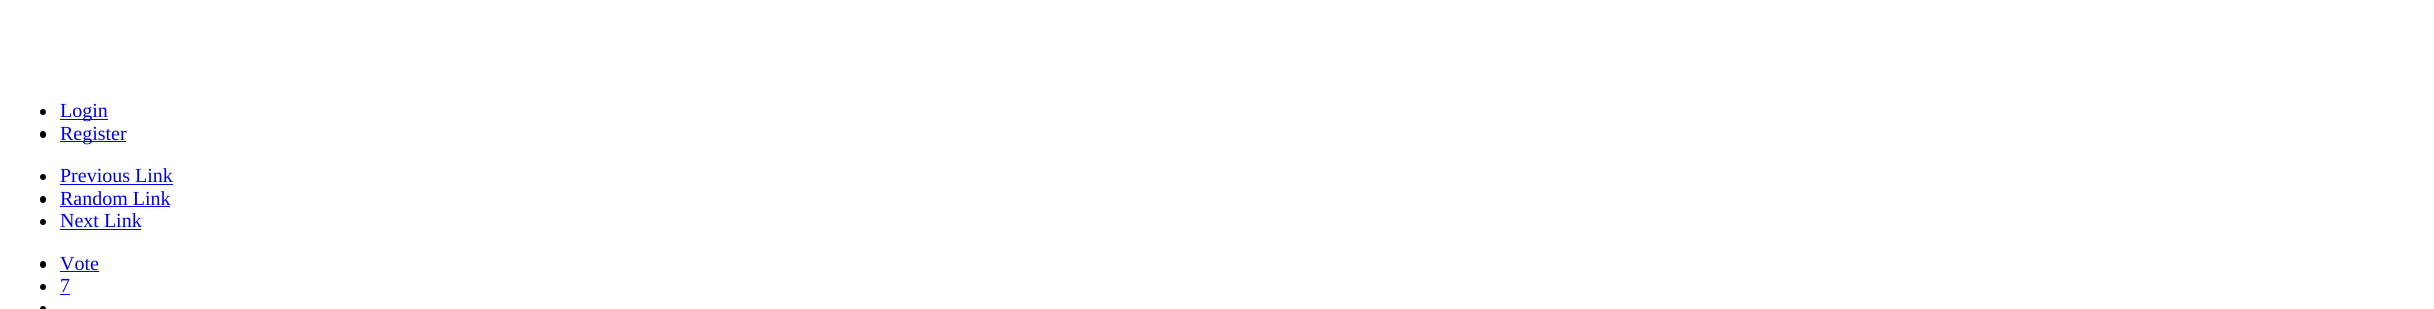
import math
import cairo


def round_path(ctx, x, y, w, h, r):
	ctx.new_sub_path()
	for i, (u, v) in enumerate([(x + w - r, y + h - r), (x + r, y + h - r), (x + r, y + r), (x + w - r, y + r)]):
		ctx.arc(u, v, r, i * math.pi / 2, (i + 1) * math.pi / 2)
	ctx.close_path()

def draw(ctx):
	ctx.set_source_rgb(1, 1, 1)
	ctx.paint()
	ctx.set_source_rgb(0, 0, 0)
	ctx.arc(43, 112, 3, 0, 2 * math.pi)
	ctx.fill()
	ctx.set_source_rgb(0, 0, 0.933)
	ctx.rectangle(60, 119, 48, 1)
	ctx.fill()
	ctx.select_font_face('Liberation Serif')
	ctx.set_font_size(20)
	ctx.move_to(60, 117)
	ctx.show_text('Login')
	ctx.set_source_rgb(0, 0, 0)
	round_path(ctx, 40, 131, 6, 7, 3)
	ctx.fill()
	ctx.set_source_rgb(0, 0, 0.933)
	ctx.rectangle(60, 141, 66, 1)
	ctx.fill()
	ctx.move_to(60, 140)
	ctx.show_text('Register')
	ctx.set_source_rgb(0, 0, 0)
	ctx.new_path()
	ctx.arc(43, 177, 3, 0, 2 * math.pi)
	ctx.fill()
	ctx.set_source_rgb(0, 0, 0.933)
	ctx.move_to(60, 182)
	ctx.show_text('Previous Link')
	ctx.rectangle(60, 184, 113, 1)
	ctx.fill()
	ctx.set_source_rgb(0, 0, 0)
	round_path(ctx, 40, 196, 6, 7, 3)
	ctx.fill()
	ctx.set_source_rgb(0, 0, 0.933)
	ctx.move_to(60, 205)
	ctx.show_text('Random Link')
	ctx.rectangle(60, 206, 110, 1)
	ctx.fill()
	ctx.set_source_rgb(0, 0, 0)
	ctx.arc(43, 222, 3, 0, 2 * math.pi)
	ctx.fill()
	ctx.set_source_rgb(0, 0, 0.933)
	ctx.move_to(60, 227)
	ctx.show_text('Next Link')
	ctx.rectangle(60, 229, 81, 1)
	ctx.fill()
	ctx.set_source_rgb(0, 0, 0)
	round_path(ctx, 40, 261, 6, 7, 3)
	ctx.fill()
	ctx.set_source_rgb(0, 0, 0.933)
	ctx.move_to(60, 270)
	ctx.show_text('Vote')
	ctx.rectangle(60, 271, 39, 1)
	ctx.fill()
	ctx.set_source_rgb(0, 0, 0)
	ctx.arc(43, 287, 3, 0, 2 * math.pi)
	ctx.fill()
	ctx.set_source_rgb(0, 0, 0.933)
	ctx.move_to(60, 292)
	ctx.show_text('7')
	ctx.rectangle(60, 294, 10, 1)
	ctx.fill()
	ctx.set_source_rgb(0, 0, 0)
	ctx.arc(43, 309, 3, 0, 2 * math.pi)
	ctx.fill()


surface = cairo.ImageSurface(cairo.FORMAT_RGB24, 2434, 309)
ctx = cairo.Context(surface)
options = cairo.FontOptions()
options.set_hint_metrics(cairo.HINT_METRICS_OFF)
options.set_hint_style(cairo.HINT_STYLE_NONE)
ctx.set_font_options(options)
ctx.set_miter_limit(4)
draw(ctx)
surface.write_to_png('image.png')
